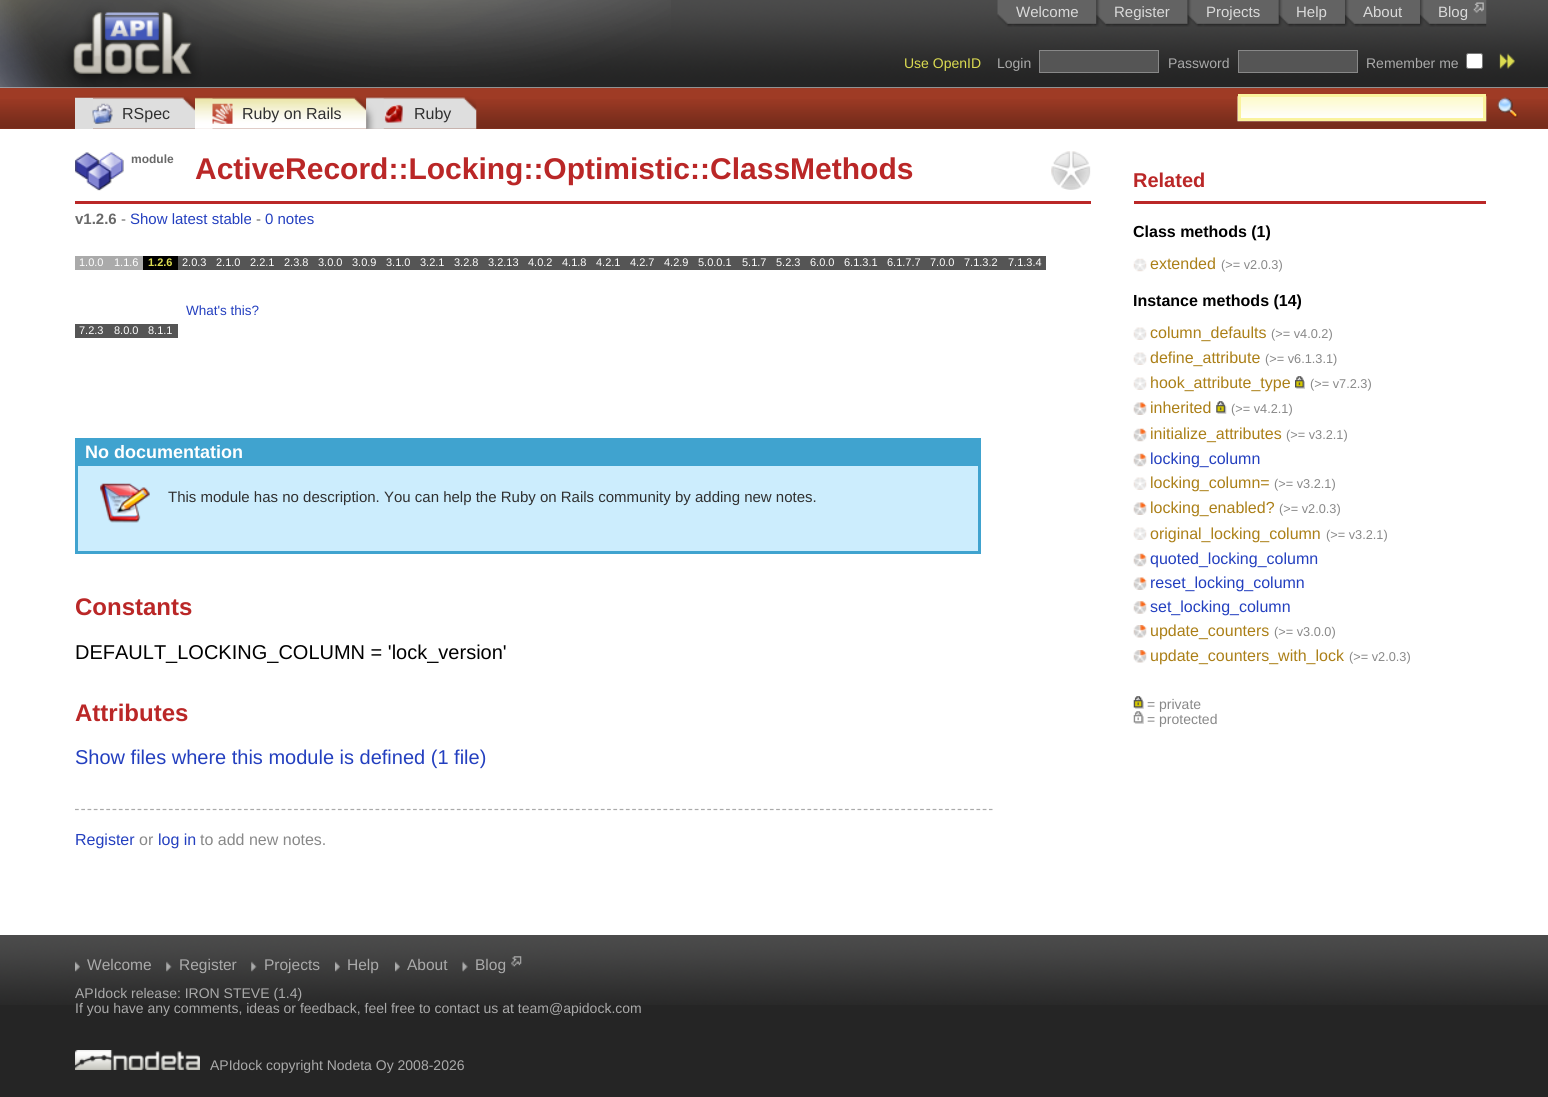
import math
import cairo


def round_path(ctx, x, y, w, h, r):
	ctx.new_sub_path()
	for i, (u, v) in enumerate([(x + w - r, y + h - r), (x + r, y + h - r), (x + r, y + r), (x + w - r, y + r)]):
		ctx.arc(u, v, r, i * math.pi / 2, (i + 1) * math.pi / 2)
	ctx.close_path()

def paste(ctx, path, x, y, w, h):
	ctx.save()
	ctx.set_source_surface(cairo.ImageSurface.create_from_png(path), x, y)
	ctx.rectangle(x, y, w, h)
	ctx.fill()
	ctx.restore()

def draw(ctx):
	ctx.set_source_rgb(1, 1, 1)
	ctx.paint()
	paste(ctx, 'media/1.png', 0, 0, 1548, 88)
	paste(ctx, 'media/2.png', 0, 0, 671, 88)
	paste(ctx, 'media/3.png', 997, 0, 100, 27)
	ctx.select_font_face('Liberation Sans')
	ctx.set_font_size(15)
	ctx.set_source_rgb(0.855, 0.855, 0.855)
	ctx.move_to(1016, 17)
	ctx.show_text('Welcome')
	paste(ctx, 'media/4.png', 1096, 0, 92, 27)
	ctx.move_to(1114, 17)
	ctx.show_text('Register')
	paste(ctx, 'media/5.png', 1187, 0, 92, 27)
	ctx.move_to(1206, 17)
	ctx.show_text('Projects')
	paste(ctx, 'media/6.png', 1278, 0, 67, 27)
	ctx.move_to(1296, 17)
	ctx.show_text('Help')
	paste(ctx, 'media/7.png', 1345, 0, 75, 27)
	ctx.move_to(1363, 17)
	ctx.show_text('About')
	paste(ctx, 'media/8.png', 1420, 0, 67, 27)
	paste(ctx, 'media/9.png', 1473, 2, 11, 11)
	ctx.move_to(1438, 17)
	ctx.show_text('Blog')
	ctx.set_font_size(14)
	ctx.set_source_rgb(0.859, 0.859, 0.318)
	ctx.move_to(904, 68)
	ctx.show_text('Use OpenID')
	ctx.set_source_rgb(0.667, 0.667, 0.667)
	ctx.move_to(997, 68)
	ctx.show_text('Login')
	ctx.set_source_rgb(0.333, 0.333, 0.333)
	ctx.rectangle(1039.5, 50.5, 119, 22)
	ctx.fill_preserve()
	ctx.set_source_rgb(0.533, 0.533, 0.533)
	ctx.set_line_width(1)
	ctx.stroke()
	ctx.set_source_rgb(0.667, 0.667, 0.667)
	ctx.move_to(1168, 68)
	ctx.show_text('Password')
	ctx.set_source_rgb(0.333, 0.333, 0.333)
	ctx.rectangle(1238.5, 50.5, 119, 22)
	ctx.fill_preserve()
	ctx.set_source_rgb(0.533, 0.533, 0.533)
	ctx.stroke()
	ctx.set_source_rgb(0.667, 0.667, 0.667)
	ctx.move_to(1366, 68)
	ctx.show_text('Remember me')
	ctx.set_source_rgb(1, 1, 1)
	round_path(ctx, 1466.5, 53.5, 16, 15, 2)
	ctx.fill_preserve()
	ctx.set_source_rgb(0.463, 0.463, 0.463)
	ctx.stroke()
	paste(ctx, 'media/10.png', 1499, 53, 16, 16)
	ctx.set_source_rgb(0.624, 0.231, 0.145)
	ctx.rectangle(0, 88, 1548, 41)
	ctx.fill()
	paste(ctx, 'media/11.png', 0, 99, 1548, 30)
	paste(ctx, 'media/12.png', 75, 96, 120, 33)
	ctx.set_source_rgb(0.867, 0.867, 0.867)
	ctx.rectangle(75, 98, 18, 31)
	ctx.fill()
	paste(ctx, 'media/13.png', 92, 103, 21, 21)
	ctx.set_font_size(16)
	ctx.set_source_rgb(0.188, 0.188, 0.188)
	ctx.move_to(122, 119)
	ctx.show_text('RSpec')
	paste(ctx, 'media/14.png', 195, 96, 172, 33)
	paste(ctx, 'media/15.png', 195, 98, 18, 31)
	paste(ctx, 'media/16.png', 212, 103, 21, 21)
	ctx.move_to(242, 119)
	ctx.show_text('Ruby on Rails')
	paste(ctx, 'media/17.png', 366, 96, 111, 33)
	paste(ctx, 'media/18.png', 366, 98, 18, 31)
	paste(ctx, 'media/19.png', 384, 104, 19, 19)
	ctx.move_to(414, 119)
	ctx.show_text('Ruby')
	paste(ctx, 'media/20.png', 1237, 96, 250, 26)
	ctx.rectangle(1239.5, 95.5, 245, 24)
	ctx.set_source_rgb(0.98, 0.953, 0.616)
	ctx.set_line_width(3)
	ctx.stroke()
	paste(ctx, 'media/21.png', 1497, 97, 21, 21)
	ctx.set_source_rgb(0.729, 0.153, 0.153)
	ctx.rectangle(75, 201, 1016, 3)
	ctx.fill()
	paste(ctx, 'media/22.png', 75, 152, 49, 39)
	ctx.select_font_face('Liberation Sans', cairo.FONT_SLANT_NORMAL, cairo.FONT_WEIGHT_BOLD)
	ctx.set_font_size(12)
	ctx.set_source_rgb(0.412, 0.412, 0.412)
	ctx.move_to(131, 163)
	ctx.show_text('module')
	ctx.set_font_size(30)
	ctx.set_source_rgb(0.729, 0.153, 0.153)
	ctx.move_to(195, 179)
	ctx.show_text('ActiveRecord::Locking::Optimistic::ClassMethods')
	paste(ctx, 'media/23.png', 1051, 151, 40, 39)
	ctx.set_font_size(15)
	ctx.set_source_rgb(0.412, 0.412, 0.412)
	ctx.move_to(75, 224)
	ctx.show_text('v1.2.6')
	ctx.select_font_face('Liberation Sans')
	ctx.move_to(121, 224)
	ctx.show_text('-')
	ctx.set_source_rgb(0.137, 0.247, 0.749)
	ctx.move_to(130, 224)
	ctx.show_text('Show latest stable')
	ctx.set_source_rgb(0.412, 0.412, 0.412)
	ctx.move_to(256, 224)
	ctx.show_text('-')
	ctx.set_source_rgb(0.137, 0.247, 0.749)
	ctx.move_to(265, 224)
	ctx.show_text('0 notes')
	ctx.set_source_rgb(0.667, 0.667, 0.667)
	ctx.rectangle(75, 256, 68, 14)
	ctx.fill()
	ctx.set_font_size(11)
	ctx.set_source_rgb(1, 1, 1)
	ctx.move_to(79, 266)
	ctx.show_text('1.0.0')
	ctx.move_to(114, 266)
	ctx.show_text('1.1.6')
	ctx.set_source_rgb(0, 0, 0)
	ctx.rectangle(143, 256, 35, 14)
	ctx.fill()
	ctx.select_font_face('Liberation Sans', cairo.FONT_SLANT_NORMAL, cairo.FONT_WEIGHT_BOLD)
	ctx.set_source_rgb(0.859, 0.859, 0.318)
	ctx.move_to(148, 266)
	ctx.show_text('1.2.6')
	ctx.set_source_rgb(0.333, 0.333, 0.333)
	ctx.rectangle(178, 256, 868, 14)
	ctx.fill()
	ctx.select_font_face('Liberation Sans')
	ctx.set_source_rgb(1, 1, 1)
	for x, y, s in [
		(182, 266, '2.0.3'),
		(216, 266, '2.1.0'),
		(250, 266, '2.2.1'),
		(284, 266, '2.3.8'),
		(318, 266, '3.0.0'),
		(352, 266, '3.0.9'),
		(386, 266, '3.1.0'),
		(420, 266, '3.2.1'),
		(454, 266, '3.2.8'),
		(488, 266, '3.2.13'),
		(528, 266, '4.0.2'),
		(562, 266, '4.1.8'),
		(596, 266, '4.2.1'),
		(630, 266, '4.2.7'),
		(664, 266, '4.2.9'),
		(698, 266, '5.0.0.1'),
		(742, 266, '5.1.7'),
		(776, 266, '5.2.3'),
		(810, 266, '6.0.0'),
		(844, 266, '6.1.3.1'),
		(887, 266, '6.1.7.7'),
		(930, 266, '7.0.0'),
		(964, 266, '7.1.3.2'),
		(1008, 266, '7.1.3.4'),
	]:
		ctx.move_to(x, y)
		ctx.show_text(s)
	ctx.set_font_size(13.5)
	ctx.set_source_rgb(0.137, 0.247, 0.749)
	ctx.move_to(186, 315)
	ctx.show_text('What\'s this?')
	ctx.set_source_rgb(0.333, 0.333, 0.333)
	ctx.rectangle(75, 324, 103, 14)
	ctx.fill()
	ctx.set_font_size(11)
	ctx.set_source_rgb(1, 1, 1)
	for x, y, s in [
		(79, 334, '7.2.3'),
		(114, 334, '8.0.0'),
		(148, 334, '8.1.1'),
	]:
		ctx.move_to(x, y)
		ctx.show_text(s)
	ctx.set_source_rgb(0.729, 0.153, 0.153)
	ctx.rectangle(1134, 201, 352, 3)
	ctx.fill()
	ctx.select_font_face('Liberation Sans', cairo.FONT_SLANT_NORMAL, cairo.FONT_WEIGHT_BOLD)
	ctx.set_font_size(20)
	ctx.move_to(1133, 187)
	ctx.show_text('Related')
	ctx.set_font_size(16)
	ctx.set_source_rgb(0, 0, 0)
	ctx.move_to(1133, 237)
	ctx.show_text('Class methods (1)')
	paste(ctx, 'media/24.png', 1133, 258, 14, 14)
	ctx.select_font_face('Liberation Sans')
	ctx.set_source_rgb(0.671, 0.498, 0.09)
	ctx.move_to(1150, 269)
	ctx.show_text('extended')
	ctx.set_font_size(12.75)
	ctx.set_source_rgb(0.533, 0.533, 0.533)
	ctx.move_to(1221, 269)
	ctx.show_text('(>= v2.0.3)')
	ctx.select_font_face('Liberation Sans', cairo.FONT_SLANT_NORMAL, cairo.FONT_WEIGHT_BOLD)
	ctx.set_font_size(16)
	ctx.set_source_rgb(0, 0, 0)
	ctx.move_to(1133, 306)
	ctx.show_text('Instance methods (14)')
	paste(ctx, 'media/25.png', 1133, 327, 14, 13)
	ctx.select_font_face('Liberation Sans')
	ctx.set_source_rgb(0.671, 0.498, 0.09)
	ctx.move_to(1150, 338)
	ctx.show_text('column_defaults')
	ctx.set_font_size(12.75)
	ctx.set_source_rgb(0.533, 0.533, 0.533)
	ctx.move_to(1271, 338)
	ctx.show_text('(>= v4.0.2)')
	paste(ctx, 'media/25.png', 1133, 352, 14, 13)
	ctx.set_font_size(16)
	ctx.set_source_rgb(0.671, 0.498, 0.09)
	ctx.move_to(1150, 363)
	ctx.show_text('define_attribute')
	ctx.set_font_size(12.75)
	ctx.set_source_rgb(0.533, 0.533, 0.533)
	ctx.move_to(1265, 363)
	ctx.show_text('(>= v6.1.3.1)')
	paste(ctx, 'media/25.png', 1133, 377, 14, 13)
	ctx.set_font_size(16)
	ctx.set_source_rgb(0.671, 0.498, 0.09)
	ctx.move_to(1150, 388)
	ctx.show_text('hook_attribute_type')
	paste(ctx, 'media/26.png', 1295, 376, 10, 13)
	ctx.set_font_size(12.75)
	ctx.set_source_rgb(0.533, 0.533, 0.533)
	ctx.move_to(1310, 388)
	ctx.show_text('(>= v7.2.3)')
	paste(ctx, 'media/27.png', 1133, 402, 14, 13)
	ctx.set_font_size(16)
	ctx.set_source_rgb(0.671, 0.498, 0.09)
	ctx.move_to(1150, 413)
	ctx.show_text('inherited')
	paste(ctx, 'media/28.png', 1216, 401, 11, 13)
	ctx.set_font_size(12.75)
	ctx.set_source_rgb(0.533, 0.533, 0.533)
	ctx.move_to(1231, 413)
	ctx.show_text('(>= v4.2.1)')
	paste(ctx, 'media/29.png', 1133, 428, 14, 14)
	ctx.set_font_size(16)
	ctx.set_source_rgb(0.671, 0.498, 0.09)
	ctx.move_to(1150, 439)
	ctx.show_text('initialize_attributes')
	ctx.set_font_size(12.75)
	ctx.set_source_rgb(0.533, 0.533, 0.533)
	ctx.move_to(1286, 439)
	ctx.show_text('(>= v3.2.1)')
	paste(ctx, 'media/29.png', 1133, 453, 14, 14)
	ctx.set_font_size(16)
	ctx.set_source_rgb(0.137, 0.247, 0.749)
	ctx.move_to(1150, 464)
	ctx.show_text('locking_column')
	paste(ctx, 'media/25.png', 1133, 477, 14, 13)
	ctx.set_source_rgb(0.671, 0.498, 0.09)
	ctx.move_to(1150, 488)
	ctx.show_text('locking_column=')
	ctx.set_font_size(12.75)
	ctx.set_source_rgb(0.533, 0.533, 0.533)
	ctx.move_to(1274, 488)
	ctx.show_text('(>= v3.2.1)')
	paste(ctx, 'media/27.png', 1133, 502, 14, 13)
	ctx.set_font_size(16)
	ctx.set_source_rgb(0.671, 0.498, 0.09)
	ctx.move_to(1150, 513)
	ctx.show_text('locking_enabled?')
	ctx.set_font_size(12.75)
	ctx.set_source_rgb(0.533, 0.533, 0.533)
	ctx.move_to(1279, 513)
	ctx.show_text('(>= v2.0.3)')
	paste(ctx, 'media/25.png', 1133, 527, 14, 13)
	ctx.set_font_size(16)
	ctx.set_source_rgb(0.671, 0.498, 0.09)
	ctx.move_to(1150, 539)
	ctx.show_text('original_locking_column')
	ctx.set_font_size(12.75)
	ctx.set_source_rgb(0.533, 0.533, 0.533)
	ctx.move_to(1326, 539)
	ctx.show_text('(>= v3.2.1)')
	paste(ctx, 'media/29.png', 1133, 553, 14, 14)
	ctx.set_font_size(16)
	ctx.set_source_rgb(0.137, 0.247, 0.749)
	ctx.move_to(1150, 564)
	ctx.show_text('quoted_locking_column')
	paste(ctx, 'media/27.png', 1133, 577, 14, 13)
	ctx.move_to(1150, 588)
	ctx.show_text('reset_locking_column')
	paste(ctx, 'media/30.png', 1133, 601, 14, 13)
	ctx.move_to(1150, 612)
	ctx.show_text('set_locking_column')
	paste(ctx, 'media/31.png', 1133, 625, 14, 13)
	ctx.set_source_rgb(0.671, 0.498, 0.09)
	ctx.move_to(1150, 636)
	ctx.show_text('update_counters')
	ctx.set_font_size(12.75)
	ctx.set_source_rgb(0.533, 0.533, 0.533)
	ctx.move_to(1274, 636)
	ctx.show_text('(>= v3.0.0)')
	paste(ctx, 'media/31.png', 1133, 650, 14, 13)
	ctx.set_font_size(16)
	ctx.set_source_rgb(0.671, 0.498, 0.09)
	ctx.move_to(1150, 661)
	ctx.show_text('update_counters_with_lock')
	ctx.set_font_size(12.75)
	ctx.set_source_rgb(0.533, 0.533, 0.533)
	ctx.move_to(1349, 661)
	ctx.show_text('(>= v2.0.3)')
	paste(ctx, 'media/32.png', 1133, 696, 11, 13)
	ctx.set_font_size(14)
	ctx.move_to(1147, 709)
	ctx.show_text('= private')
	paste(ctx, 'media/33.png', 1133, 711, 11, 13)
	ctx.move_to(1147, 724)
	ctx.show_text('= protected')
	ctx.set_source_rgb(0.8, 0.929, 0.992)
	ctx.rectangle(78, 466, 900, 85)
	ctx.fill()
	paste(ctx, 'media/34.png', 100, 483, 50, 40)
	ctx.set_source_rgb(0.251, 0.639, 0.812)
	ctx.rectangle(75, 438, 905, 1)
	ctx.rectangle(978, 438, 3, 116)
	ctx.rectangle(75, 551, 905, 3)
	ctx.rectangle(75, 438, 3, 116)
	ctx.rectangle(78, 439, 900, 27)
	ctx.fill()
	ctx.select_font_face('Liberation Sans', cairo.FONT_SLANT_NORMAL, cairo.FONT_WEIGHT_BOLD)
	ctx.set_font_size(18)
	ctx.set_source_rgb(1, 1, 1)
	ctx.move_to(85, 458)
	ctx.show_text('No documentation')
	ctx.select_font_face('Liberation Sans')
	ctx.set_font_size(15)
	ctx.set_source_rgb(0.188, 0.188, 0.188)
	ctx.move_to(168, 502)
	ctx.show_text('This module has no description. You can help the Ruby on Rails community by adding new notes.')
	ctx.select_font_face('Liberation Sans', cairo.FONT_SLANT_NORMAL, cairo.FONT_WEIGHT_BOLD)
	ctx.set_font_size(24)
	ctx.set_source_rgb(0.729, 0.153, 0.153)
	ctx.move_to(75, 615)
	ctx.show_text('Constants')
	ctx.select_font_face('Liberation Sans')
	ctx.set_font_size(20)
	ctx.set_source_rgb(0, 0, 0)
	ctx.move_to(75, 659)
	ctx.show_text('DEFAULT_LOCKING_COLUMN = \'lock_version\'')
	ctx.select_font_face('Liberation Sans', cairo.FONT_SLANT_NORMAL, cairo.FONT_WEIGHT_BOLD)
	ctx.set_font_size(24)
	ctx.set_source_rgb(0.729, 0.153, 0.153)
	ctx.move_to(75, 721)
	ctx.show_text('Attributes')
	ctx.select_font_face('Liberation Sans')
	ctx.set_font_size(20)
	ctx.set_source_rgb(0.137, 0.247, 0.749)
	ctx.move_to(75, 764)
	ctx.show_text('Show files where this module is defined (1 file)')
	ctx.new_path()
	ctx.move_to(75, 809.5)
	ctx.line_to(992.5, 809.5)
	ctx.set_source_rgb(0.667, 0.667, 0.667)
	ctx.set_line_width(1.2)
	ctx.set_dash([3.75, 2.51])
	ctx.stroke()
	ctx.set_font_size(16)
	ctx.set_source_rgb(0.137, 0.247, 0.749)
	ctx.move_to(75, 845)
	ctx.show_text('Register')
	ctx.set_source_rgb(0.533, 0.533, 0.533)
	ctx.move_to(139, 845)
	ctx.show_text('or')
	ctx.set_source_rgb(0.137, 0.247, 0.749)
	ctx.move_to(158, 845)
	ctx.show_text('log in')
	ctx.set_source_rgb(0.533, 0.533, 0.533)
	ctx.move_to(200, 845)
	ctx.show_text('to add new notes.')
	ctx.set_source_rgb(0.145, 0.145, 0.145)
	ctx.rectangle(0, 1005, 1548, 92)
	ctx.fill()
	paste(ctx, 'media/35.png', 0, 935, 1548, 70)
	paste(ctx, 'media/36.png', 75, 961, 5, 11)
	ctx.set_font_size(15.5)
	ctx.set_source_rgb(0.667, 0.667, 0.667)
	ctx.move_to(87, 970)
	ctx.show_text('Welcome')
	paste(ctx, 'media/37.png', 166, 961, 6, 11)
	ctx.move_to(179, 970)
	ctx.show_text('Register')
	paste(ctx, 'media/38.png', 251, 961, 6, 11)
	ctx.move_to(264, 970)
	ctx.show_text('Projects')
	paste(ctx, 'media/39.png', 335, 961, 5, 11)
	ctx.move_to(347, 970)
	ctx.show_text('Help')
	paste(ctx, 'media/36.png', 395, 961, 5, 11)
	ctx.move_to(407, 970)
	ctx.show_text('About')
	paste(ctx, 'media/40.png', 511, 956, 11, 11)
	paste(ctx, 'media/41.png', 462, 961, 6, 11)
	ctx.move_to(475, 970)
	ctx.show_text('Blog')
	ctx.set_font_size(14)
	ctx.move_to(75, 998)
	ctx.show_text('APIdock release: IRON STEVE (1.4)')
	ctx.move_to(75, 1013)
	ctx.show_text('If you have any comments, ideas or feedback, feel free to contact us at team@apidock.com')
	paste(ctx, 'media/42.png', 75, 1050, 125, 20)
	ctx.move_to(210, 1070)
	ctx.show_text('APIdock copyright Nodeta Oy 2008-2026')


surface = cairo.ImageSurface(cairo.FORMAT_RGB24, 1548, 1097)
ctx = cairo.Context(surface)
options = cairo.FontOptions()
options.set_hint_metrics(cairo.HINT_METRICS_OFF)
options.set_hint_style(cairo.HINT_STYLE_NONE)
ctx.set_font_options(options)
ctx.set_miter_limit(4)
draw(ctx)
surface.write_to_png('image.png')
